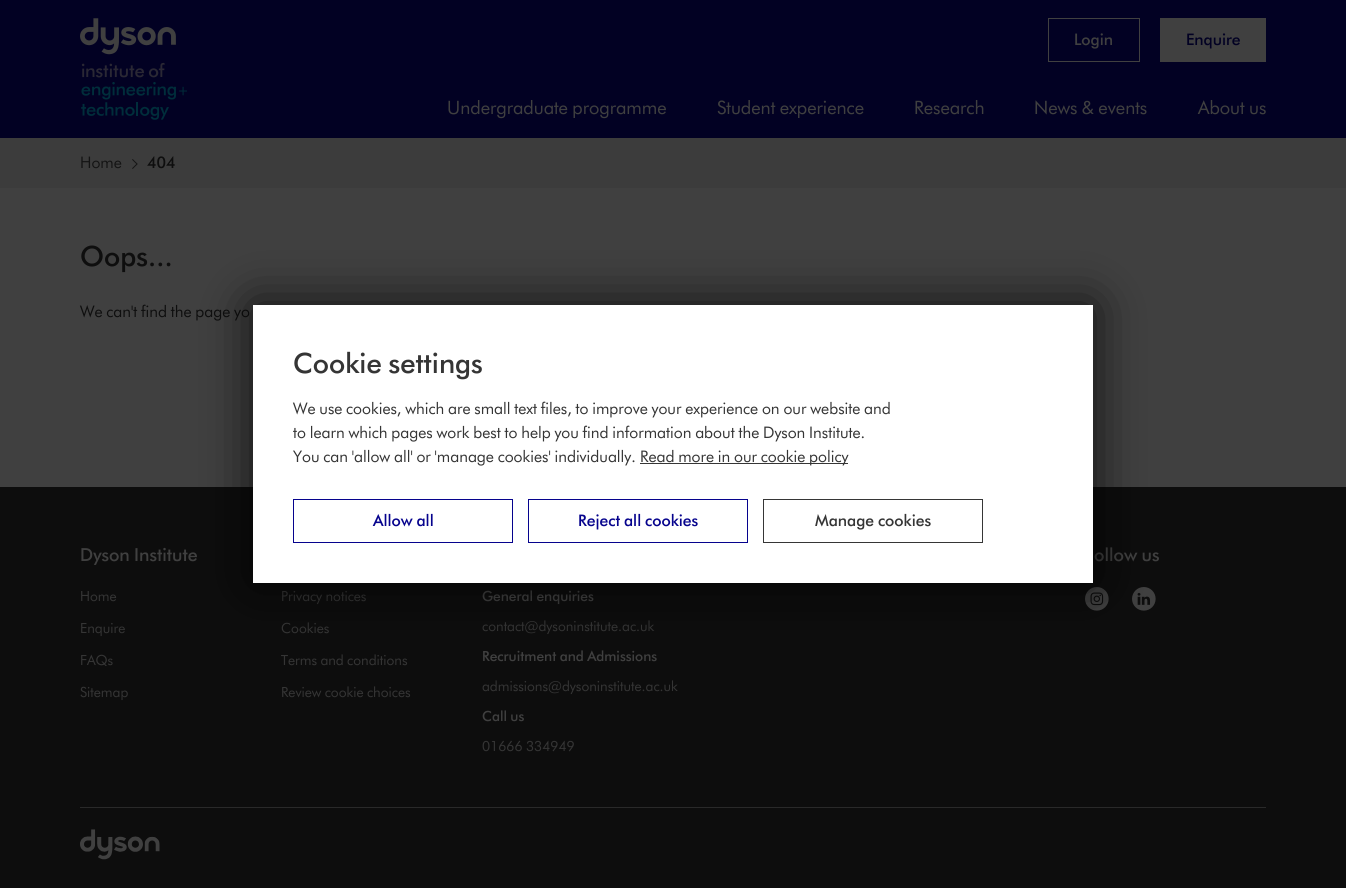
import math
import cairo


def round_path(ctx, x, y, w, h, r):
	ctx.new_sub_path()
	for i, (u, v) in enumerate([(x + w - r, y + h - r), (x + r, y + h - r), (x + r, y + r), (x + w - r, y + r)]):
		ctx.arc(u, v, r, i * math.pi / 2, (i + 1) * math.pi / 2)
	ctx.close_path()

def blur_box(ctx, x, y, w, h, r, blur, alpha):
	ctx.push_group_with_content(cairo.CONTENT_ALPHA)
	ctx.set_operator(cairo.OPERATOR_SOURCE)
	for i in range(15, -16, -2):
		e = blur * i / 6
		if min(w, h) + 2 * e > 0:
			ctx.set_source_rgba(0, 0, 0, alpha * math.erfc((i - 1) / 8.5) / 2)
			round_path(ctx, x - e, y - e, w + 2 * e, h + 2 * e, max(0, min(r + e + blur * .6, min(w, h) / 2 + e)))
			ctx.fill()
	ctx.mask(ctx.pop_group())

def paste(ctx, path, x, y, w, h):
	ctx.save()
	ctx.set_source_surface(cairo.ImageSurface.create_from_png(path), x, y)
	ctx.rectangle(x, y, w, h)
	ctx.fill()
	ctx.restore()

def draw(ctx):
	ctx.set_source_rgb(0.251, 0.251, 0.251)
	ctx.paint()
	ctx.set_source_rgb(0.008, 0.004, 0.137)
	ctx.rectangle(0, 0, 1346, 138)
	ctx.fill()
	paste(ctx, 'media/1.png', 80, 18, 107, 102)
	ctx.rectangle(1048.5, 18.5, 91, 43)
	ctx.set_source_rgb(0.251, 0.251, 0.251)
	ctx.set_line_width(1)
	ctx.stroke()
	ctx.select_font_face('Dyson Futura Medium')
	ctx.set_font_size(16)
	ctx.move_to(1074, 45)
	ctx.show_text('Login')
	ctx.rectangle(1160, 18, 106, 44)
	ctx.fill()
	ctx.set_source_rgb(0.008, 0.004, 0.137)
	ctx.move_to(1186, 45)
	ctx.show_text('Enquire')
	ctx.select_font_face('Dyson Futura')
	ctx.set_font_size(18.5)
	ctx.set_source_rgb(0.251, 0.251, 0.251)
	for x, y, s in [
		(447, 114, 'Undergraduate programme'),
		(717, 114, 'Student experience'),
		(914, 114, 'Research'),
		(1034, 114, 'News & events'),
		(1198, 114, 'About us'),
	]:
		ctx.move_to(x, y)
		ctx.show_text(s)
	ctx.set_source_rgb(0.235, 0.235, 0.235)
	ctx.rectangle(0, 138, 1346, 50)
	ctx.fill()
	ctx.set_font_size(16)
	ctx.set_source_rgb(0.082, 0.082, 0.082)
	ctx.move_to(80, 168)
	ctx.show_text('Home')
	paste(ctx, 'media/2.png', 132, 159, 6, 10)
	ctx.select_font_face('Dyson Futura Medium')
	ctx.set_source_rgb(0.055, 0.055, 0.055)
	ctx.move_to(147, 168)
	ctx.show_text('404')
	ctx.set_font_size(28)
	ctx.move_to(80, 266)
	ctx.show_text('Oops...')
	ctx.select_font_face('Dyson Futura')
	ctx.set_font_size(16)
	ctx.move_to(80, 317)
	ctx.show_text('We can\'t find the page yo')
	ctx.set_source_rgb(0.051, 0.051, 0.051)
	ctx.rectangle(0, 487, 1346, 401)
	ctx.fill()
	ctx.select_font_face('Dyson Futura Medium')
	ctx.set_font_size(18)
	ctx.set_source_rgb(0.251, 0.251, 0.251)
	ctx.move_to(80, 561)
	ctx.show_text('Dyson Institute')
	ctx.select_font_face('Dyson Futura')
	ctx.set_font_size(14)
	ctx.set_source_rgb(0.208, 0.208, 0.208)
	for x, y, s in [
		(80, 601, 'Home'),
		(80, 633, 'Enquire'),
		(80, 665, 'FAQs'),
		(80, 697, 'Sitemap'),
	]:
		ctx.move_to(x, y)
		ctx.show_text(s)
	ctx.select_font_face('Dyson Futura Medium')
	ctx.set_font_size(18)
	ctx.set_source_rgb(0.251, 0.251, 0.251)
	ctx.move_to(1094, 561)
	ctx.show_text('ollow us')
	paste(ctx, 'media/3.png', 1085, 587, 24, 24)
	paste(ctx, 'media/4.png', 1132, 587, 24, 24)
	ctx.select_font_face('Dyson Futura')
	ctx.set_font_size(14)
	ctx.set_source_rgb(0.208, 0.208, 0.208)
	for x, y, s in [
		(281, 601, 'Privacy notices'),
		(281, 633, 'Cookies'),
		(281, 665, 'Terms and conditions'),
		(281, 697, 'Review cookie choices'),
	]:
		ctx.move_to(x, y)
		ctx.show_text(s)
	ctx.select_font_face('Dyson Futura Medium')
	ctx.set_source_rgb(0.251, 0.251, 0.251)
	ctx.move_to(482, 601)
	ctx.show_text('General enquiries')
	ctx.select_font_face('Dyson Futura')
	ctx.set_source_rgb(0.208, 0.208, 0.208)
	ctx.move_to(482, 631)
	ctx.show_text('contact@dysoninstitute.ac.uk')
	ctx.select_font_face('Dyson Futura Medium')
	ctx.set_source_rgb(0.251, 0.251, 0.251)
	ctx.move_to(482, 661)
	ctx.show_text('Recruitment and Admissions')
	ctx.select_font_face('Dyson Futura')
	ctx.set_source_rgb(0.208, 0.208, 0.208)
	ctx.move_to(482, 691)
	ctx.show_text('admissions@dysoninstitute.ac.uk')
	ctx.select_font_face('Dyson Futura Medium')
	ctx.set_source_rgb(0.251, 0.251, 0.251)
	ctx.move_to(482, 721)
	ctx.show_text('Call us')
	ctx.select_font_face('Dyson Futura')
	ctx.set_source_rgb(0.208, 0.208, 0.208)
	ctx.move_to(482, 751)
	ctx.show_text('01666 334949')
	ctx.set_source_rgb(0.161, 0.161, 0.161)
	ctx.rectangle(80, 807, 1186, 1)
	ctx.fill()
	paste(ctx, 'media/5.png', 80, 829, 80, 31)
	ctx.set_source_rgb(0, 0, 0)
	blur_box(ctx, 253, 305, 840, 278, 0, 25, 0.75)
	ctx.set_source_rgb(1, 1, 1)
	ctx.rectangle(253, 305, 840, 278)
	ctx.fill()
	ctx.select_font_face('Dyson Futura Medium')
	ctx.set_font_size(28)
	ctx.set_source_rgb(0.208, 0.208, 0.208)
	ctx.move_to(293, 373)
	ctx.show_text('Cookie settings')
	ctx.select_font_face('Dyson Futura')
	ctx.set_font_size(16)
	for x, y, s in [
		(293, 414, 'We use cookies, which are small text files, to improve your experience on our website and'),
		(293, 438, 'to learn which pages work best to help you find information about the Dyson Institute.'),
		(293, 462, 'You can \'allow all\' or \'manage cookies\' individually.'),
	]:
		ctx.move_to(x, y)
		ctx.show_text(s)
	ctx.set_source_rgb(0.212, 0.212, 0.212)
	ctx.rectangle(640, 463, 208, 1)
	ctx.fill()
	ctx.set_source_rgb(0.208, 0.208, 0.208)
	ctx.move_to(640, 462)
	ctx.show_text('Read more in our cookie policy')
	ctx.rectangle(293.5, 499.5, 219, 43)
	ctx.set_source_rgb(0.024, 0.012, 0.553)
	ctx.stroke()
	ctx.select_font_face('Dyson Futura Medium')
	ctx.move_to(373, 526)
	ctx.show_text('Allow all')
	ctx.rectangle(528.5, 499.5, 219, 43)
	ctx.stroke()
	ctx.move_to(578, 526)
	ctx.show_text('Reject all cookies')
	ctx.rectangle(763.5, 499.5, 219, 43)
	ctx.set_source_rgb(0.212, 0.212, 0.212)
	ctx.stroke()
	ctx.set_source_rgb(0.208, 0.208, 0.208)
	ctx.move_to(815, 526)
	ctx.show_text('Manage cookies')


surface = cairo.ImageSurface(cairo.FORMAT_RGB24, 1346, 888)
ctx = cairo.Context(surface)
options = cairo.FontOptions()
options.set_hint_metrics(cairo.HINT_METRICS_OFF)
options.set_hint_style(cairo.HINT_STYLE_NONE)
ctx.set_font_options(options)
ctx.set_miter_limit(4)
draw(ctx)
surface.write_to_png('image.png')
